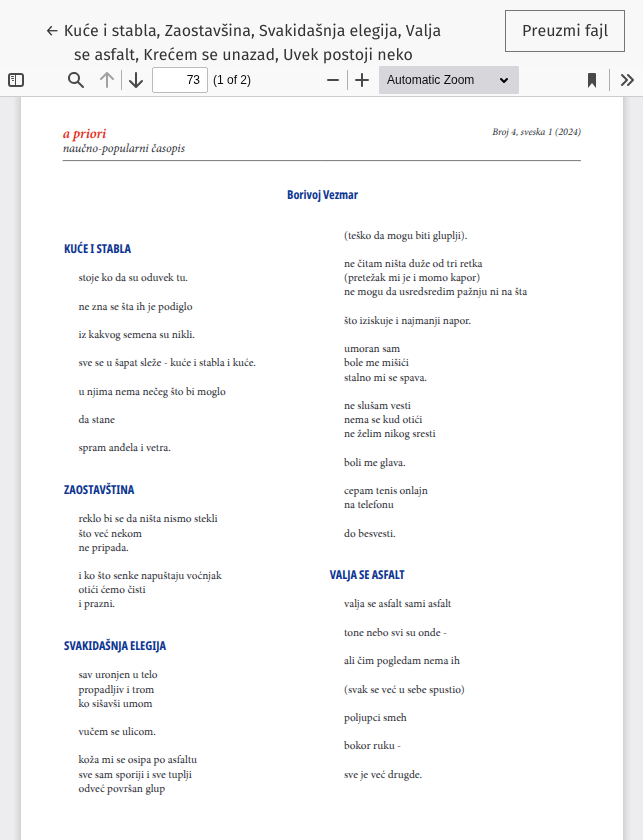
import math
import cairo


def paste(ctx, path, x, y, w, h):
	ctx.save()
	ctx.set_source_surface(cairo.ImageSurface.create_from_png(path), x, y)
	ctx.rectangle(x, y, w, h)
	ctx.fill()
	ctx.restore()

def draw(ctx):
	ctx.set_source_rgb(0.969, 0.969, 0.969)
	ctx.paint()
	ctx.select_font_face('Fira Sans')
	ctx.set_font_size(16)
	ctx.set_source_rgb(0.2, 0.2, 0.2)
	ctx.move_to(45, 36)
	ctx.show_text('← Kuće i stabla, Zaostavšina, Svakidašnja elegija, Valja')
	ctx.move_to(74, 60)
	ctx.show_text('se asfalt, Krećem se unazad, Uvek postoji neko')
	ctx.rectangle(505.5, 10.5, 119, 41)
	ctx.set_source_rgb(0.459, 0.459, 0.459)
	ctx.set_line_width(1)
	ctx.stroke()
	ctx.set_source_rgb(0.2, 0.2, 0.2)
	ctx.move_to(522, 36)
	ctx.show_text('Preuzmi fajl')
	paste(ctx, 'media/1.png', 0, 66, 643, 774)


surface = cairo.ImageSurface(cairo.FORMAT_RGB24, 643, 840)
ctx = cairo.Context(surface)
options = cairo.FontOptions()
options.set_hint_metrics(cairo.HINT_METRICS_OFF)
options.set_hint_style(cairo.HINT_STYLE_NONE)
ctx.set_font_options(options)
ctx.set_miter_limit(4)
draw(ctx)
surface.write_to_png('image.png')
